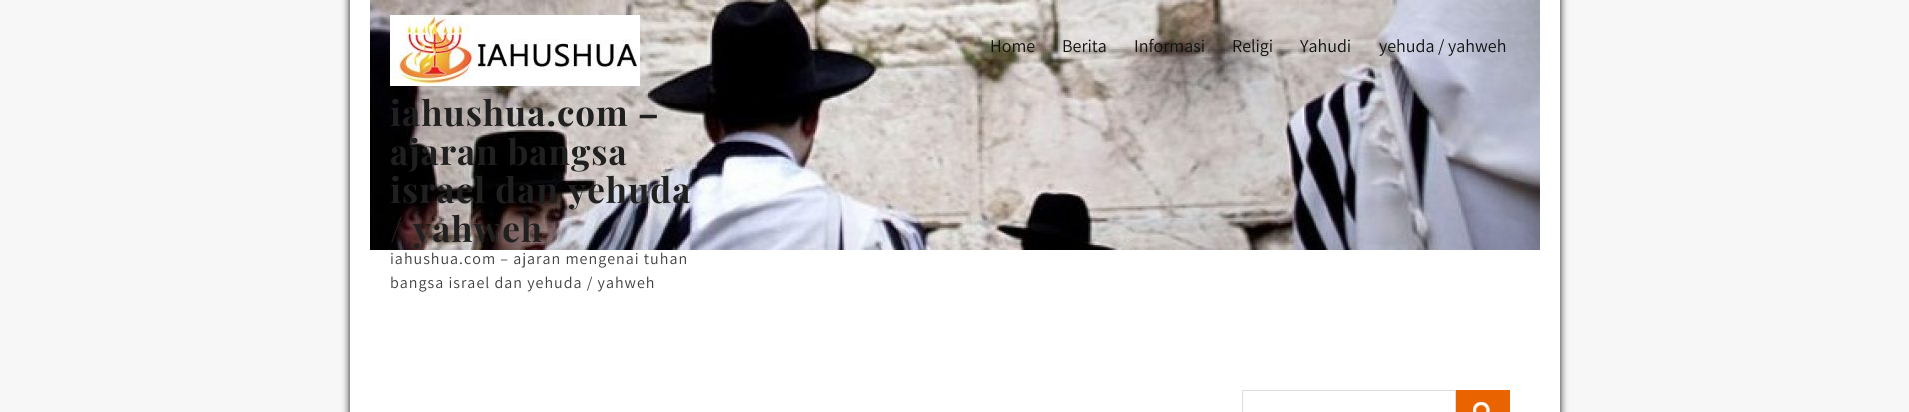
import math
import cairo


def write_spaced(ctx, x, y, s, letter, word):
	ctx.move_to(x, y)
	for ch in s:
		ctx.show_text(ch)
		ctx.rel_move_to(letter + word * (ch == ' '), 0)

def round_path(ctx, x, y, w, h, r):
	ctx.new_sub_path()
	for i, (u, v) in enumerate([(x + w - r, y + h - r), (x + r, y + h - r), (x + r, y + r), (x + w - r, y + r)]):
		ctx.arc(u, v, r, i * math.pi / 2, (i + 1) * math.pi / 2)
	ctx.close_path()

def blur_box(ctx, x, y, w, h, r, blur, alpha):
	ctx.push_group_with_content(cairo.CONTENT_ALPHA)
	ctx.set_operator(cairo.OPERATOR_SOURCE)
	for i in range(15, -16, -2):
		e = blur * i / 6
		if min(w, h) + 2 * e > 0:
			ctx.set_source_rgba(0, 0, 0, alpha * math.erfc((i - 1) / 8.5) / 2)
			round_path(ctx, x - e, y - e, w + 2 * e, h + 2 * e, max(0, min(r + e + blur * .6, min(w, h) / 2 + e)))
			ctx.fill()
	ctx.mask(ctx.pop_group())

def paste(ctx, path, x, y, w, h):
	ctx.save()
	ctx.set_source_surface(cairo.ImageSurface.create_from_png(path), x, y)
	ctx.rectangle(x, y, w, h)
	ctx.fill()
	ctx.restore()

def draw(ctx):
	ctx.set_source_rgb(0.965, 0.965, 0.965)
	ctx.paint()
	ctx.set_source_rgb(0.067, 0.067, 0.067)
	blur_box(ctx, 350, -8, 1210, 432, 0, 4, 1)
	ctx.set_source_rgb(1, 1, 1)
	ctx.rectangle(350, 0, 1210, 412)
	ctx.fill()
	paste(ctx, 'media/1.png', 370, 0, 1170, 250)
	ctx.select_font_face('Assistant')
	ctx.set_font_size(18)
	ctx.set_source_rgb(0.067, 0.067, 0.067)
	for x, y, s in [
		(990, 52, 'Home'),
		(1062, 52, 'Berita'),
		(1134, 52, 'Informasi'),
		(1232, 52, 'Religi'),
		(1300, 52, 'Yahudi'),
		(1379, 52, 'yehuda / yahweh'),
	]:
		ctx.move_to(x, y)
		ctx.show_text(s)
	paste(ctx, 'media/2.png', 390, 15, 250, 71)
	ctx.select_font_face('Playfair Display', cairo.FONT_SLANT_NORMAL, cairo.FONT_WEIGHT_BOLD)
	ctx.set_font_size(35)
	ctx.set_source_rgb(0.125, 0.125, 0.125)
	for x, y, s in [
		(390, 126, 'iahushua.com –'),
		(390, 165, 'ajaran bangsa'),
		(390, 203, 'israel dan yehuda'),
		(390, 242, '/ yahweh'),
	]:
		write_spaced(ctx, x, y, s, 1, 0)
	ctx.select_font_face('Assistant')
	ctx.set_font_size(16)
	ctx.set_source_rgb(0.251, 0.251, 0.251)
	write_spaced(ctx, 390, 264, 'iahushua.com – ajaran mengenai tuhan', 1, 0)
	write_spaced(ctx, 390, 288, 'bangsa israel dan yehuda / yahweh', 1, 0)
	ctx.rectangle(1242.5, 390.5, 213, 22)
	ctx.set_source_rgb(0.867, 0.867, 0.867)
	ctx.set_line_width(1)
	ctx.stroke()
	ctx.set_source_rgb(0.914, 0.388, 0)
	ctx.rectangle(1456, 390, 54, 22)
	ctx.fill()
	paste(ctx, 'media/3.png', 1473, 402, 18, 10)


surface = cairo.ImageSurface(cairo.FORMAT_RGB24, 1909, 412)
ctx = cairo.Context(surface)
options = cairo.FontOptions()
options.set_hint_metrics(cairo.HINT_METRICS_OFF)
options.set_hint_style(cairo.HINT_STYLE_NONE)
ctx.set_font_options(options)
ctx.set_miter_limit(4)
draw(ctx)
surface.write_to_png('image.png')
